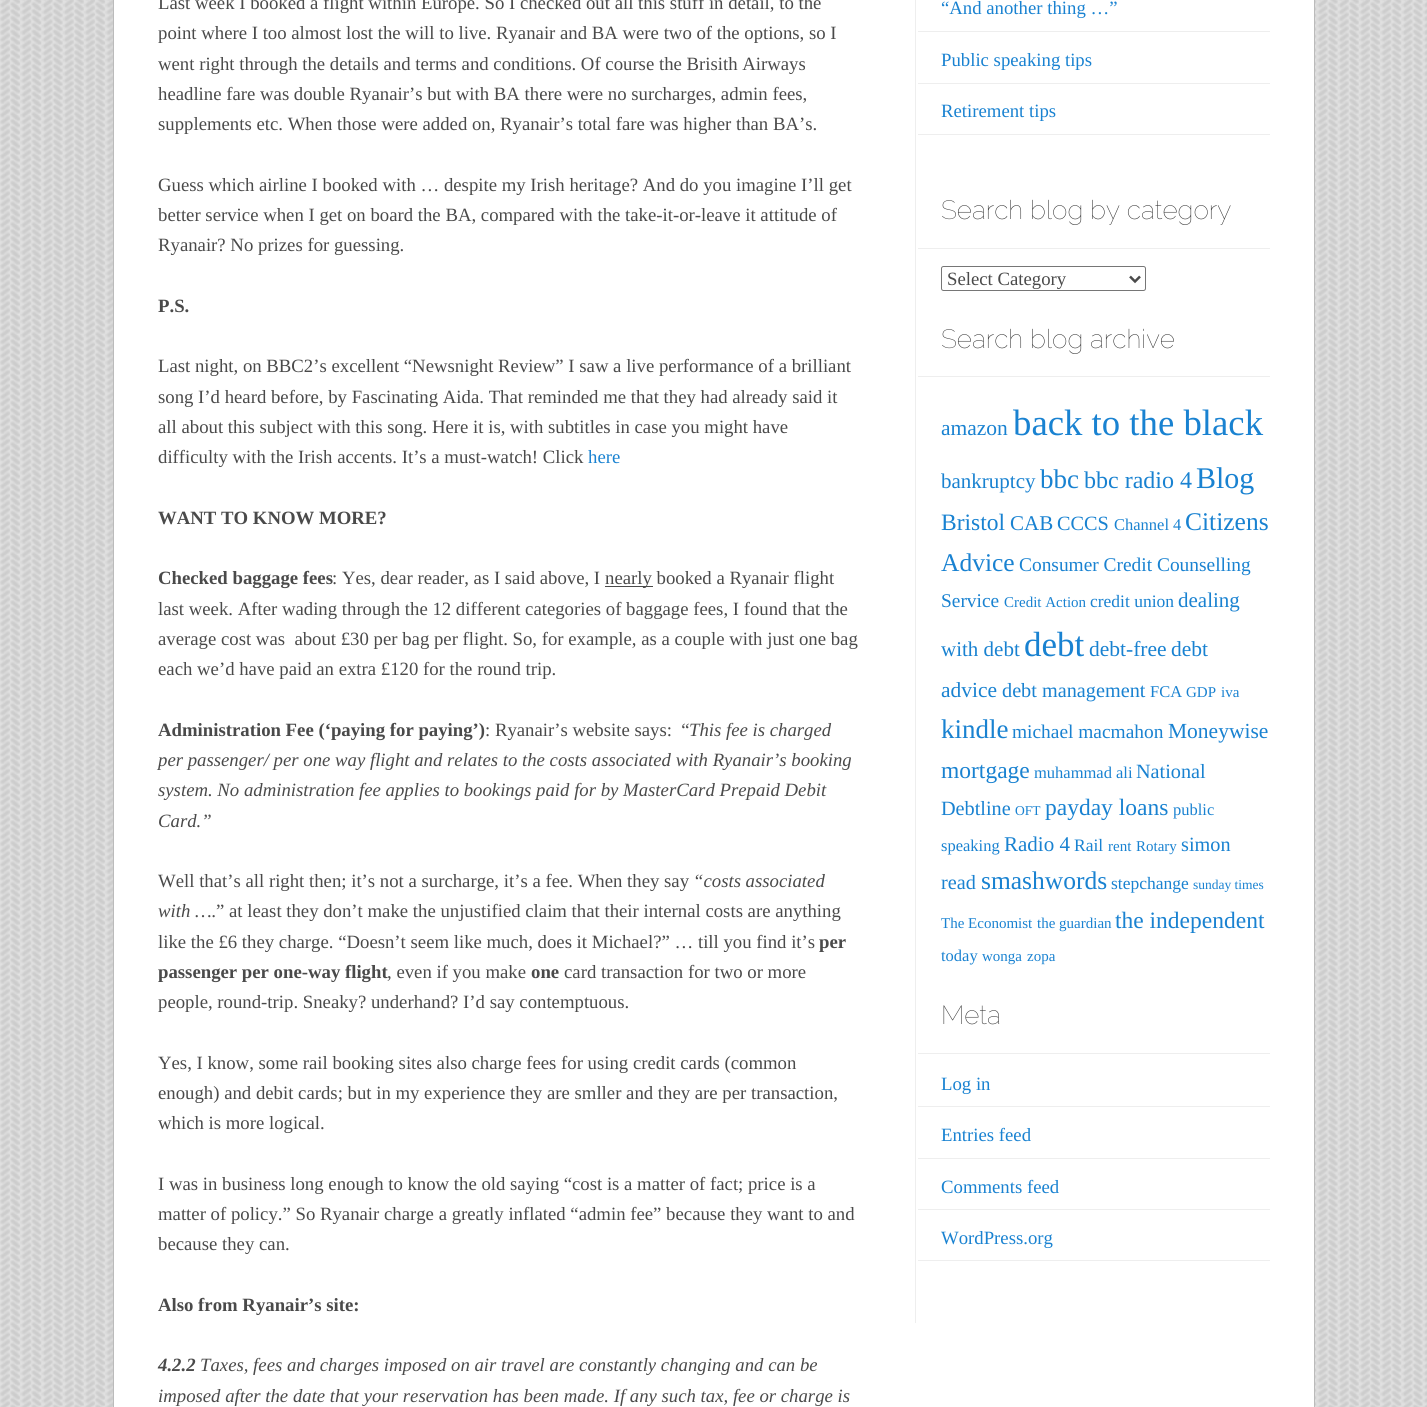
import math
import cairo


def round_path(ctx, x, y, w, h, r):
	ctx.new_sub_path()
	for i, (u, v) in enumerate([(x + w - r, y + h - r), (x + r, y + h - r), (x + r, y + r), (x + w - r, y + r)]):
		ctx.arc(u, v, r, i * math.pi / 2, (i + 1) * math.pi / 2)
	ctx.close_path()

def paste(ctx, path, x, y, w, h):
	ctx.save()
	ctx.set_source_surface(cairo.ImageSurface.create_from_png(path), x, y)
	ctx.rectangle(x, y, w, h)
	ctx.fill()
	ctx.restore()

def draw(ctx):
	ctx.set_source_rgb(0.886, 0.886, 0.886)
	ctx.paint()
	paste(ctx, 'media/1.png', 0, 0, 1427, 1407)
	ctx.set_source_rgb(1, 1, 1)
	ctx.rectangle(113.5, -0.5, 1201, 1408)
	ctx.fill_preserve()
	ctx.set_source_rgb(0.733, 0.733, 0.733)
	ctx.set_line_width(1)
	ctx.stroke()
	ctx.select_font_face('Liberation Serif')
	ctx.set_font_size(18.75)
	ctx.set_source_rgb(0.29, 0.29, 0.29)
	for x, y, s in [
		(158, 9, 'Last week I booked a flight within Europe. So I checked out all this stuff in detail, to the'),
		(158, 39, 'point where I too almost lost the will to live. Ryanair and BA were two of the options, so I'),
		(158, 70, 'went right through the details and terms and conditions. Of course the Brisith Airways'),
		(158, 100, 'headline fare was double Ryanair’s but with BA there were no surcharges, admin fees,'),
		(158, 130, 'supplements etc. When those were added on, Ryanair’s total fare was higher than BA’s.'),
		(158, 191, 'Guess which airline I booked with … despite my Irish heritage? And do you imagine I’ll get'),
		(158, 221, 'better service when I get on board the BA, compared with the take-it-or-leave it attitude of'),
		(158, 251, 'Ryanair? No prizes for guessing.'),
	]:
		ctx.move_to(x, y)
		ctx.show_text(s)
	ctx.select_font_face('Liberation Serif', cairo.FONT_SLANT_NORMAL, cairo.FONT_WEIGHT_BOLD)
	ctx.move_to(158, 312)
	ctx.show_text('P.S.')
	ctx.select_font_face('Liberation Serif')
	for x, y, s in [
		(158, 372, 'Last night, on BBC2’s excellent “Newsnight Review” I saw a live performance of a brilliant'),
		(158, 403, 'song I’d heard before, by Fascinating Aida. That reminded me that they had already said it'),
		(158, 433, 'all about this subject with this song. Here it is, with subtitles in case you might have'),
		(158, 463, 'difficulty with the Irish accents. It’s a must-watch! Click'),
	]:
		ctx.move_to(x, y)
		ctx.show_text(s)
	ctx.set_source_rgb(0.098, 0.51, 0.82)
	ctx.move_to(588, 463)
	ctx.show_text('here')
	ctx.select_font_face('Liberation Serif', cairo.FONT_SLANT_NORMAL, cairo.FONT_WEIGHT_BOLD)
	ctx.set_source_rgb(0.29, 0.29, 0.29)
	ctx.move_to(158, 524)
	ctx.show_text('WANT TO KNOW MORE?')
	ctx.move_to(158, 584)
	ctx.show_text('Checked baggage fees')
	ctx.select_font_face('Liberation Serif')
	ctx.move_to(332, 584)
	ctx.show_text(': Yes, dear reader, as I said above, I')
	ctx.rectangle(605, 586, 48, 1)
	ctx.fill()
	for x, y, s in [
		(605, 584, 'nearly booked a Ryanair flight'),
		(158, 615, 'last week. After wading through the 12 different categories of baggage fees, I found that the'),
		(158, 645, 'average cost was  about £30 per bag per flight. So, for example, as a couple with just one bag'),
		(158, 675, 'each we’d have paid an extra £120 for the round trip.'),
	]:
		ctx.move_to(x, y)
		ctx.show_text(s)
	ctx.select_font_face('Liberation Serif', cairo.FONT_SLANT_NORMAL, cairo.FONT_WEIGHT_BOLD)
	ctx.move_to(158, 736)
	ctx.show_text('Administration Fee (‘paying for paying’)')
	ctx.select_font_face('Liberation Serif')
	ctx.move_to(485, 736)
	ctx.show_text(': Ryanair’s website says:  “')
	ctx.select_font_face('Liberation Serif', cairo.FONT_SLANT_ITALIC)
	for x, y, s in [
		(689, 736, 'This fee is charged'),
		(158, 766, 'per passenger/ per one way flight and relates to the costs associated with Ryanair’s booking'),
		(158, 796, 'system. No administration fee applies to bookings paid for by MasterCard Prepaid Debit'),
		(158, 827, 'Card.”'),
	]:
		ctx.move_to(x, y)
		ctx.show_text(s)
	ctx.select_font_face('Liberation Serif')
	ctx.move_to(158, 887)
	ctx.show_text('Well that’s all right then; it’s not a surcharge, it’s a fee. When they say')
	ctx.select_font_face('Liberation Serif', cairo.FONT_SLANT_ITALIC)
	ctx.move_to(693, 887)
	ctx.show_text('“costs associated')
	ctx.move_to(158, 917)
	ctx.show_text('with ….')
	ctx.select_font_face('Liberation Serif')
	ctx.move_to(216, 917)
	ctx.show_text('” at least they don’t make the unjustified claim that their internal costs are anything')
	ctx.move_to(158, 948)
	ctx.show_text('like the £6 they charge. “Doesn’t seem like much, does it Michael?” … till you find it’s')
	ctx.select_font_face('Liberation Serif', cairo.FONT_SLANT_NORMAL, cairo.FONT_WEIGHT_BOLD)
	ctx.move_to(819, 948)
	ctx.show_text('per')
	ctx.move_to(158, 978)
	ctx.show_text('passenger per one-way flight')
	ctx.select_font_face('Liberation Serif')
	ctx.move_to(387, 978)
	ctx.show_text(', even if you make')
	ctx.select_font_face('Liberation Serif', cairo.FONT_SLANT_NORMAL, cairo.FONT_WEIGHT_BOLD)
	ctx.move_to(531, 978)
	ctx.show_text('one')
	ctx.select_font_face('Liberation Serif')
	for x, y, s in [
		(564, 978, 'card transaction for two or more'),
		(158, 1008, 'people, round-trip. Sneaky? underhand? I’d say contemptuous.'),
		(158, 1069, 'Yes, I know, some rail booking sites also charge fees for using credit cards (common'),
		(158, 1099, 'enough) and debit cards; but in my experience they are smller and they are per transaction,'),
		(158, 1129, 'which is more logical.'),
		(158, 1190, 'I was in business long enough to know the old saying “cost is a matter of fact; price is a'),
		(158, 1220, 'matter of policy.” So Ryanair charge a greatly inflated “admin fee” because they want to and'),
		(158, 1250, 'because they can.'),
	]:
		ctx.move_to(x, y)
		ctx.show_text(s)
	ctx.select_font_face('Liberation Serif', cairo.FONT_SLANT_NORMAL, cairo.FONT_WEIGHT_BOLD)
	ctx.move_to(158, 1311)
	ctx.show_text('Also from Ryanair’s site:')
	ctx.select_font_face('Liberation Serif', cairo.FONT_SLANT_ITALIC, cairo.FONT_WEIGHT_BOLD)
	ctx.move_to(158, 1371)
	ctx.show_text('4.2.2')
	ctx.select_font_face('Liberation Serif', cairo.FONT_SLANT_ITALIC)
	ctx.move_to(200, 1371)
	ctx.show_text('Taxes, fees and charges imposed on air travel are constantly changing and can be')
	ctx.move_to(158, 1402)
	ctx.show_text('imposed after the date that your reservation has been made. If any such tax, fee or charge is')
	ctx.set_source_rgb(0.933, 0.933, 0.933)
	ctx.rectangle(915, 0, 1, 1323)
	ctx.fill()
	ctx.rectangle(918, 31, 352, 1)
	ctx.fill()
	ctx.select_font_face('Liberation Serif')
	ctx.set_source_rgb(0.098, 0.51, 0.82)
	ctx.move_to(941, 14)
	ctx.show_text('“And another thing …”')
	ctx.set_source_rgb(0.933, 0.933, 0.933)
	ctx.rectangle(918, 83, 352, 1)
	ctx.fill()
	ctx.set_source_rgb(0.098, 0.51, 0.82)
	ctx.move_to(941, 66)
	ctx.show_text('Public speaking tips')
	ctx.set_source_rgb(0.933, 0.933, 0.933)
	ctx.rectangle(918, 134, 352, 1)
	ctx.fill()
	ctx.set_source_rgb(0.098, 0.51, 0.82)
	ctx.move_to(941, 117)
	ctx.show_text('Retirement tips')
	ctx.set_source_rgb(0.933, 0.933, 0.933)
	ctx.rectangle(918, 248, 352, 1)
	ctx.fill()
	ctx.select_font_face('Raleway Thin')
	ctx.set_font_size(26.25)
	ctx.set_source_rgb(0.165, 0.165, 0.165)
	ctx.move_to(941, 219)
	ctx.show_text('Search blog by category')
	round_path(ctx, 941.5, 266.5, 204, 24, 2)
	ctx.set_source_rgb(0.463, 0.463, 0.463)
	ctx.stroke()
	ctx.new_path()
	ctx.move_to(1130, 276.5)
	ctx.line_to(1135, 281.5)
	ctx.line_to(1140, 276.5)
	ctx.set_source_rgb(0.29, 0.29, 0.29)
	ctx.set_line_width(2.5)
	ctx.stroke()
	ctx.select_font_face('Liberation Serif')
	ctx.set_font_size(18.75)
	ctx.move_to(947, 285)
	ctx.show_text('Select Category')
	ctx.set_source_rgb(0.933, 0.933, 0.933)
	ctx.rectangle(918, 376, 352, 1)
	ctx.fill()
	ctx.select_font_face('Raleway Thin')
	ctx.set_font_size(26.25)
	ctx.set_source_rgb(0.165, 0.165, 0.165)
	ctx.move_to(941, 348)
	ctx.show_text('Search blog archive')
	ctx.select_font_face('Liberation Serif')
	ctx.set_font_size(21.5)
	ctx.set_source_rgb(0.098, 0.51, 0.82)
	ctx.move_to(941, 435)
	ctx.show_text('amazon')
	ctx.set_font_size(36.75)
	ctx.move_to(1013, 435)
	ctx.show_text('back to the black')
	ctx.set_font_size(21)
	ctx.move_to(941, 488)
	ctx.show_text('bankruptcy')
	ctx.set_font_size(27)
	ctx.move_to(1040, 488)
	ctx.show_text('bbc')
	ctx.set_font_size(24)
	ctx.move_to(1084, 488)
	ctx.show_text('bbc radio 4')
	ctx.set_font_size(30)
	ctx.move_to(1196, 488)
	ctx.show_text('Blog')
	ctx.set_font_size(23.5)
	ctx.move_to(941, 530)
	ctx.show_text('Bristol')
	ctx.set_font_size(21)
	ctx.move_to(1010, 530)
	ctx.show_text('CAB')
	ctx.set_font_size(20.25)
	ctx.move_to(1057, 530)
	ctx.show_text('CCCS')
	ctx.set_font_size(16.5)
	ctx.move_to(1114, 530)
	ctx.show_text('Channel 4')
	ctx.set_font_size(25.5)
	ctx.move_to(1185, 530)
	ctx.show_text('Citizens')
	ctx.move_to(941, 571)
	ctx.show_text('Advice')
	ctx.set_font_size(19.4)
	ctx.move_to(1019, 571)
	ctx.show_text('Consumer Credit Counselling')
	ctx.move_to(941, 607)
	ctx.show_text('Service')
	ctx.set_font_size(15)
	ctx.move_to(1004, 607)
	ctx.show_text('Credit Action')
	ctx.set_font_size(17.5)
	ctx.move_to(1090, 607)
	ctx.show_text('credit union')
	ctx.set_font_size(21)
	ctx.move_to(1178, 607)
	ctx.show_text('dealing')
	ctx.move_to(941, 656)
	ctx.show_text('with debt')
	ctx.set_font_size(35)
	ctx.move_to(1024, 656)
	ctx.show_text('debt')
	ctx.set_font_size(21.5)
	for x, y, s in [
		(1089, 656, 'debt-free'),
		(1171, 656, 'debt'),
		(941, 697, 'advice'),
	]:
		ctx.move_to(x, y)
		ctx.show_text(s)
	ctx.set_font_size(20.25)
	ctx.move_to(1002, 697)
	ctx.show_text('debt management')
	ctx.set_font_size(16.5)
	ctx.move_to(1150, 697)
	ctx.show_text('FCA')
	ctx.set_font_size(15)
	ctx.move_to(1186, 697)
	ctx.show_text('GDP')
	ctx.move_to(1221, 697)
	ctx.show_text('iva')
	ctx.set_font_size(27)
	ctx.move_to(941, 738)
	ctx.show_text('kindle')
	ctx.set_font_size(19.4)
	ctx.move_to(1012, 738)
	ctx.show_text('michael macmahon')
	ctx.set_font_size(21.5)
	ctx.move_to(1168, 738)
	ctx.show_text('Moneywise')
	ctx.set_font_size(23.5)
	ctx.move_to(941, 778)
	ctx.show_text('mortgage')
	ctx.set_font_size(16.5)
	ctx.move_to(1034, 778)
	ctx.show_text('muhammad ali')
	ctx.set_font_size(20.25)
	ctx.move_to(1136, 778)
	ctx.show_text('National')
	ctx.move_to(941, 815)
	ctx.show_text('Debtline')
	ctx.set_font_size(13.5)
	ctx.move_to(1015, 815)
	ctx.show_text('OFT')
	ctx.set_font_size(23.5)
	ctx.move_to(1045, 815)
	ctx.show_text('payday loans')
	ctx.set_font_size(16.5)
	ctx.move_to(1173, 815)
	ctx.show_text('public')
	ctx.move_to(941, 851)
	ctx.show_text('speaking')
	ctx.set_font_size(21)
	ctx.move_to(1004, 851)
	ctx.show_text('Radio 4')
	ctx.set_font_size(17.5)
	ctx.move_to(1074, 851)
	ctx.show_text('Rail')
	ctx.set_font_size(15)
	ctx.move_to(1108, 851)
	ctx.show_text('rent')
	ctx.move_to(1136, 851)
	ctx.show_text('Rotary')
	ctx.set_font_size(20.25)
	ctx.move_to(1181, 851)
	ctx.show_text('simon')
	ctx.move_to(941, 889)
	ctx.show_text('read')
	ctx.set_font_size(25.5)
	ctx.move_to(981, 889)
	ctx.show_text('smashwords')
	ctx.set_font_size(17.5)
	ctx.move_to(1111, 889)
	ctx.show_text('stepchange')
	ctx.set_font_size(13.5)
	ctx.move_to(1193, 889)
	ctx.show_text('sunday times')
	ctx.set_font_size(15)
	ctx.move_to(941, 928)
	ctx.show_text('The Economist')
	ctx.move_to(1037, 928)
	ctx.show_text('the guardian')
	ctx.set_font_size(23.5)
	ctx.move_to(1115, 928)
	ctx.show_text('the independent')
	ctx.set_font_size(16.5)
	ctx.move_to(941, 961)
	ctx.show_text('today')
	ctx.set_font_size(15)
	ctx.move_to(982, 961)
	ctx.show_text('wonga')
	ctx.move_to(1027, 961)
	ctx.show_text('zopa')
	ctx.set_source_rgb(0.933, 0.933, 0.933)
	ctx.rectangle(918, 1053, 352, 1)
	ctx.fill()
	ctx.select_font_face('Raleway Thin')
	ctx.set_font_size(26.25)
	ctx.set_source_rgb(0.165, 0.165, 0.165)
	ctx.move_to(941, 1024)
	ctx.show_text('Meta')
	ctx.set_source_rgb(0.933, 0.933, 0.933)
	ctx.rectangle(918, 1106, 352, 1)
	ctx.fill()
	ctx.select_font_face('Liberation Serif')
	ctx.set_font_size(18.75)
	ctx.set_source_rgb(0.098, 0.51, 0.82)
	ctx.move_to(941, 1090)
	ctx.show_text('Log in')
	ctx.set_source_rgb(0.933, 0.933, 0.933)
	ctx.rectangle(918, 1158, 352, 1)
	ctx.fill()
	ctx.set_source_rgb(0.098, 0.51, 0.82)
	ctx.move_to(941, 1141)
	ctx.show_text('Entries feed')
	ctx.set_source_rgb(0.933, 0.933, 0.933)
	ctx.rectangle(918, 1209, 352, 1)
	ctx.fill()
	ctx.set_source_rgb(0.098, 0.51, 0.82)
	ctx.move_to(941, 1193)
	ctx.show_text('Comments feed')
	ctx.set_source_rgb(0.933, 0.933, 0.933)
	ctx.rectangle(918, 1260, 352, 1)
	ctx.fill()
	ctx.set_source_rgb(0.098, 0.51, 0.82)
	ctx.move_to(941, 1244)
	ctx.show_text('WordPress.org')


surface = cairo.ImageSurface(cairo.FORMAT_RGB24, 1427, 1407)
ctx = cairo.Context(surface)
options = cairo.FontOptions()
options.set_hint_metrics(cairo.HINT_METRICS_OFF)
options.set_hint_style(cairo.HINT_STYLE_NONE)
ctx.set_font_options(options)
ctx.set_miter_limit(4)
draw(ctx)
surface.write_to_png('image.png')
